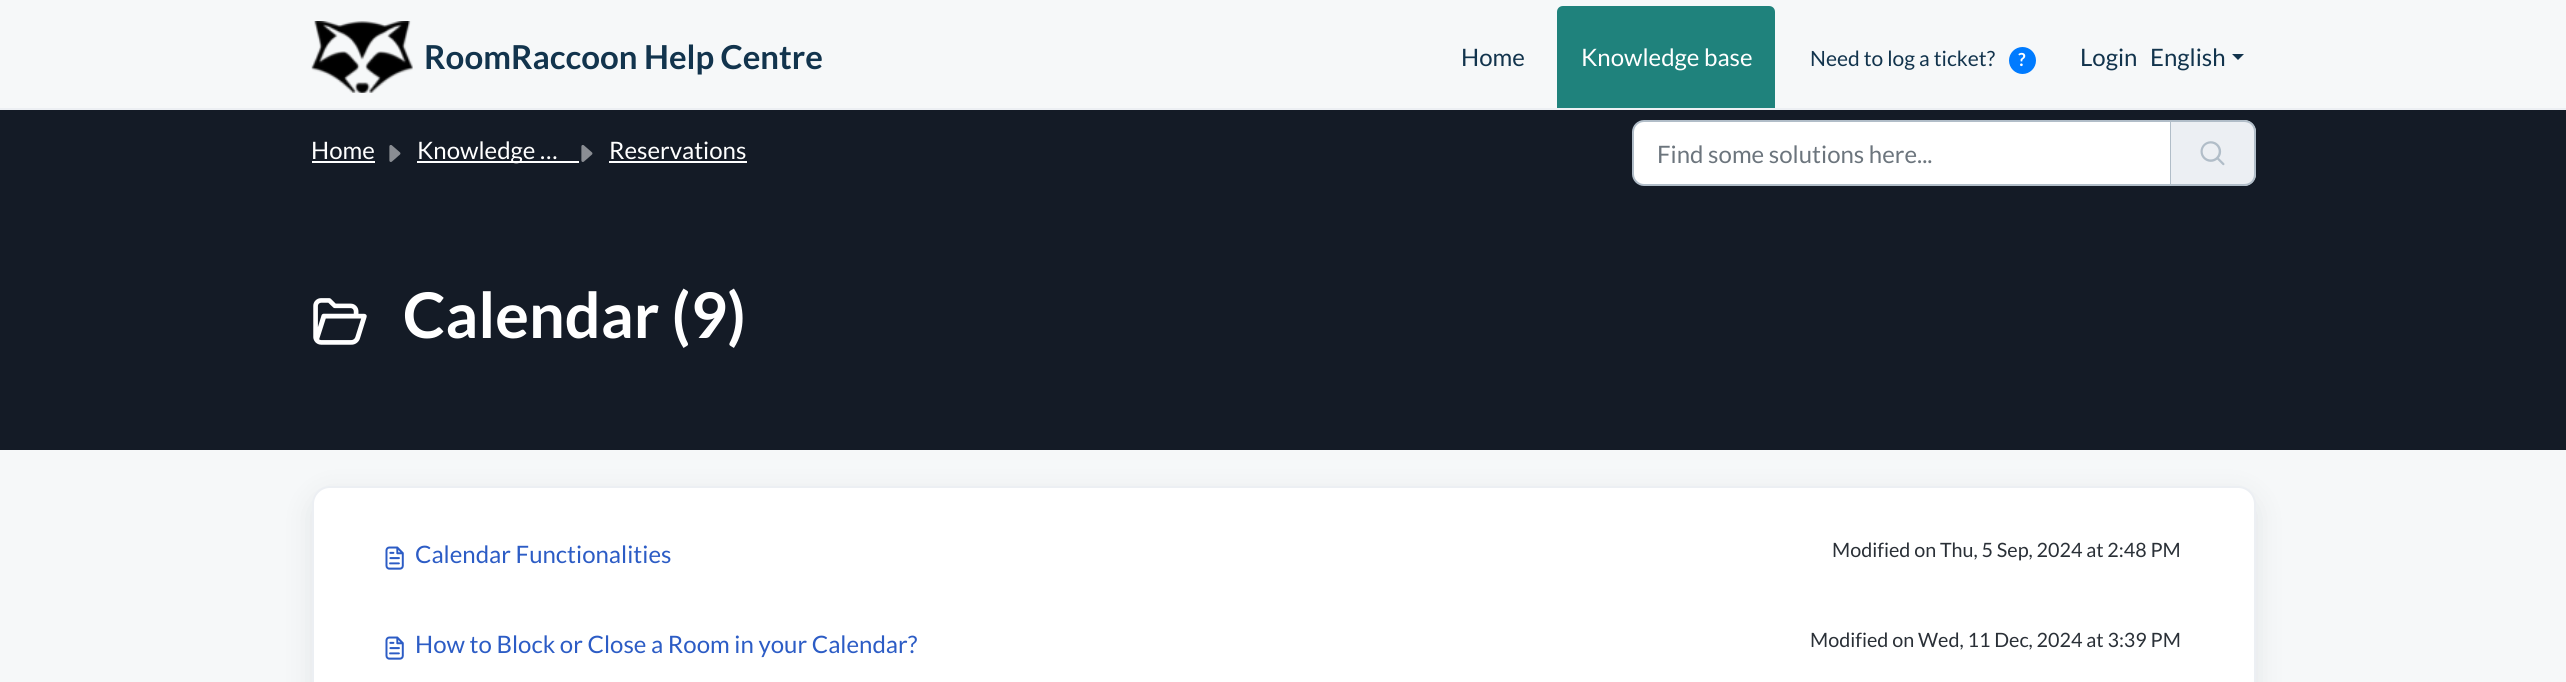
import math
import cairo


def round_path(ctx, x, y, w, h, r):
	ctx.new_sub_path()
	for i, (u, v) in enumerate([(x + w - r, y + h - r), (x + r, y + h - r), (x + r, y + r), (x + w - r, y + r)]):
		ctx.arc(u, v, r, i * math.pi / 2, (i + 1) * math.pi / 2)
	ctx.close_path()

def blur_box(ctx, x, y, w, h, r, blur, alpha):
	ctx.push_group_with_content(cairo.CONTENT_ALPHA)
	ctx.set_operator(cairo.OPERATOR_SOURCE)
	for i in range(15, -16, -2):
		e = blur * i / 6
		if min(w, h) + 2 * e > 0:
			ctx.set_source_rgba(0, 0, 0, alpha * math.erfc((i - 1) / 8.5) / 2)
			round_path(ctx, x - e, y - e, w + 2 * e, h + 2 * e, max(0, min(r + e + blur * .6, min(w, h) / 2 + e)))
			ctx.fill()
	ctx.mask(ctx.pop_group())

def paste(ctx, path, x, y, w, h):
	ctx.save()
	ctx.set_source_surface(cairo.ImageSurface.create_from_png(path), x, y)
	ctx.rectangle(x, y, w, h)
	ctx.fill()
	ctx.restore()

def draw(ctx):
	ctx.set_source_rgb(0.961, 0.969, 0.976)
	ctx.paint()
	ctx.set_source_rgb(0.922, 0.937, 0.953)
	ctx.rectangle(0, 108, 2566, 2)
	ctx.fill()
	paste(ctx, 'media/1.png', 311, 21, 102, 72)
	ctx.select_font_face('Lato', cairo.FONT_SLANT_NORMAL, cairo.FONT_WEIGHT_BOLD)
	ctx.set_font_size(33)
	ctx.set_source_rgb(0.071, 0.204, 0.302)
	ctx.move_to(424, 69)
	ctx.show_text('RoomRaccoon Help Centre')
	ctx.select_font_face('Lato')
	ctx.set_font_size(24)
	ctx.move_to(1461, 66)
	ctx.show_text('Home')
	ctx.set_source_rgb(0.122, 0.51, 0.486)
	ctx.new_path()
	ctx.move_to(1563, 6)
	ctx.line_to(1769, 6)
	ctx.curve_to(1772.5, 6, 1775, 8.5, 1775, 12)
	ctx.line_to(1775, 108)
	ctx.line_to(1557, 108)
	ctx.line_to(1557, 12)
	ctx.curve_to(1557, 8.5, 1559.5, 6, 1563, 6)
	ctx.close_path()
	ctx.fill()
	ctx.set_source_rgb(1, 1, 1)
	ctx.move_to(1581, 66)
	ctx.show_text('Knowledge base')
	ctx.set_font_size(21)
	ctx.set_source_rgb(0.071, 0.204, 0.302)
	ctx.move_to(1810, 66)
	ctx.show_text('Need to log a ticket?')
	ctx.set_source_rgb(0, 0.482, 1)
	ctx.new_path()
	ctx.arc(2022.5, 60.5, 13.5, 0, 2 * math.pi)
	ctx.fill()
	ctx.select_font_face('Lato', cairo.FONT_SLANT_NORMAL, cairo.FONT_WEIGHT_BOLD)
	ctx.set_font_size(18)
	ctx.set_source_rgb(1, 1, 1)
	ctx.move_to(2018, 66)
	ctx.show_text('?')
	ctx.select_font_face('Lato')
	ctx.set_font_size(24)
	ctx.set_source_rgb(0.071, 0.204, 0.302)
	ctx.move_to(2080, 66)
	ctx.show_text('Login')
	ctx.move_to(2150, 66)
	ctx.show_text('English')
	ctx.new_path()
	ctx.move_to(2232, 54)
	ctx.line_to(2244, 54)
	ctx.line_to(2238, 60)
	ctx.close_path()
	ctx.fill()
	ctx.set_source_rgb(0.082, 0.106, 0.149)
	ctx.rectangle(0, 110, 2566, 340)
	ctx.fill()
	ctx.set_source_rgb(1, 1, 1)
	ctx.move_to(311, 159)
	ctx.show_text('Home')
	ctx.rectangle(312, 161, 63, 2)
	ctx.fill()
	paste(ctx, 'media/2.png', 389, 145, 12, 17)
	ctx.rectangle(417, 161, 162, 2)
	ctx.fill()
	ctx.move_to(417, 159)
	ctx.show_text('Knowledge …')
	paste(ctx, 'media/2.png', 581, 145, 12, 17)
	ctx.move_to(609, 159)
	ctx.show_text('Reservations')
	ctx.rectangle(609, 161, 138, 2)
	ctx.fill()
	ctx.new_path()
	ctx.move_to(1644, 121)
	ctx.line_to(2171, 121)
	ctx.line_to(2171, 185)
	ctx.line_to(1644, 185)
	ctx.curve_to(1638, 185, 1633, 180, 1633, 174)
	ctx.line_to(1633, 132)
	ctx.curve_to(1633, 126, 1638, 121, 1644, 121)
	ctx.close_path()
	ctx.fill_preserve()
	ctx.set_source_rgb(0.694, 0.741, 0.784)
	ctx.stroke()
	ctx.set_source_rgb(0.424, 0.459, 0.49)
	ctx.move_to(1657, 163)
	ctx.show_text('Find some solutions here...')
	ctx.set_source_rgb(0.922, 0.937, 0.953)
	ctx.new_path()
	ctx.move_to(2171, 120)
	ctx.line_to(2244, 120)
	ctx.curve_to(2250.5, 120, 2256, 125.5, 2256, 132)
	ctx.line_to(2256, 174)
	ctx.curve_to(2256, 180.5, 2250.5, 186, 2244, 186)
	ctx.line_to(2171, 186)
	ctx.close_path()
	ctx.fill()
	ctx.set_source_rgb(0.694, 0.741, 0.784)
	ctx.set_fill_rule(cairo.FILL_RULE_EVEN_ODD)
	ctx.new_path()
	ctx.move_to(2170, 120)
	ctx.line_to(2244, 120)
	ctx.curve_to(2251, 120, 2256, 125, 2256, 132)
	ctx.line_to(2256, 174)
	ctx.curve_to(2256, 181, 2251, 186, 2244, 186)
	ctx.line_to(2170, 186)
	ctx.close_path()
	ctx.move_to(2170, 122)
	ctx.line_to(2244, 122)
	ctx.curve_to(2250, 122, 2254, 126, 2254, 132)
	ctx.line_to(2254, 174)
	ctx.curve_to(2254, 180, 2250, 184, 2244, 184)
	ctx.line_to(2170, 184)
	ctx.close_path()
	ctx.fill()
	paste(ctx, 'media/3.png', 2200, 141, 25, 25)
	paste(ctx, 'media/4.png', 313, 298, 54, 47)
	ctx.select_font_face('Lato', cairo.FONT_SLANT_NORMAL, cairo.FONT_WEIGHT_BOLD)
	ctx.set_font_size(63)
	ctx.set_source_rgb(1, 1, 1)
	ctx.move_to(403, 338)
	ctx.show_text('Calendar (9)')
	ctx.set_source_rgb(0.153, 0.192, 0.227)
	blur_box(ctx, 312, 495, 1944, 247, 18, 14, 0.1)
	ctx.set_source_rgb(1, 1, 1)
	round_path(ctx, 313, 487, 1942, 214, 17)
	ctx.fill_preserve()
	ctx.set_source_rgb(0.922, 0.937, 0.953)
	ctx.stroke()
	paste(ctx, 'media/5.png', 385, 546, 19, 24)
	ctx.select_font_face('Lato')
	ctx.set_font_size(24)
	ctx.set_source_rgb(0.173, 0.361, 0.773)
	ctx.move_to(415, 563)
	ctx.show_text('Calendar Functionalities')
	ctx.set_font_size(19.75)
	ctx.set_source_rgb(0.165, 0.188, 0.216)
	ctx.move_to(1832, 557)
	ctx.show_text('Modified on Thu, 5 Sep, 2024 at 2:48 PM')
	paste(ctx, 'media/5.png', 385, 636, 19, 24)
	ctx.set_font_size(24)
	ctx.set_source_rgb(0.173, 0.361, 0.773)
	ctx.move_to(415, 653)
	ctx.show_text('How to Block or Close a Room in your Calendar?')
	ctx.set_font_size(19.75)
	ctx.set_source_rgb(0.165, 0.188, 0.216)
	ctx.move_to(1810, 647)
	ctx.show_text('Modified on Wed, 11 Dec, 2024 at 3:39 PM')


surface = cairo.ImageSurface(cairo.FORMAT_RGB24, 2566, 682)
ctx = cairo.Context(surface)
options = cairo.FontOptions()
options.set_hint_metrics(cairo.HINT_METRICS_OFF)
options.set_hint_style(cairo.HINT_STYLE_NONE)
ctx.set_font_options(options)
ctx.set_miter_limit(4)
draw(ctx)
surface.write_to_png('image.png')
